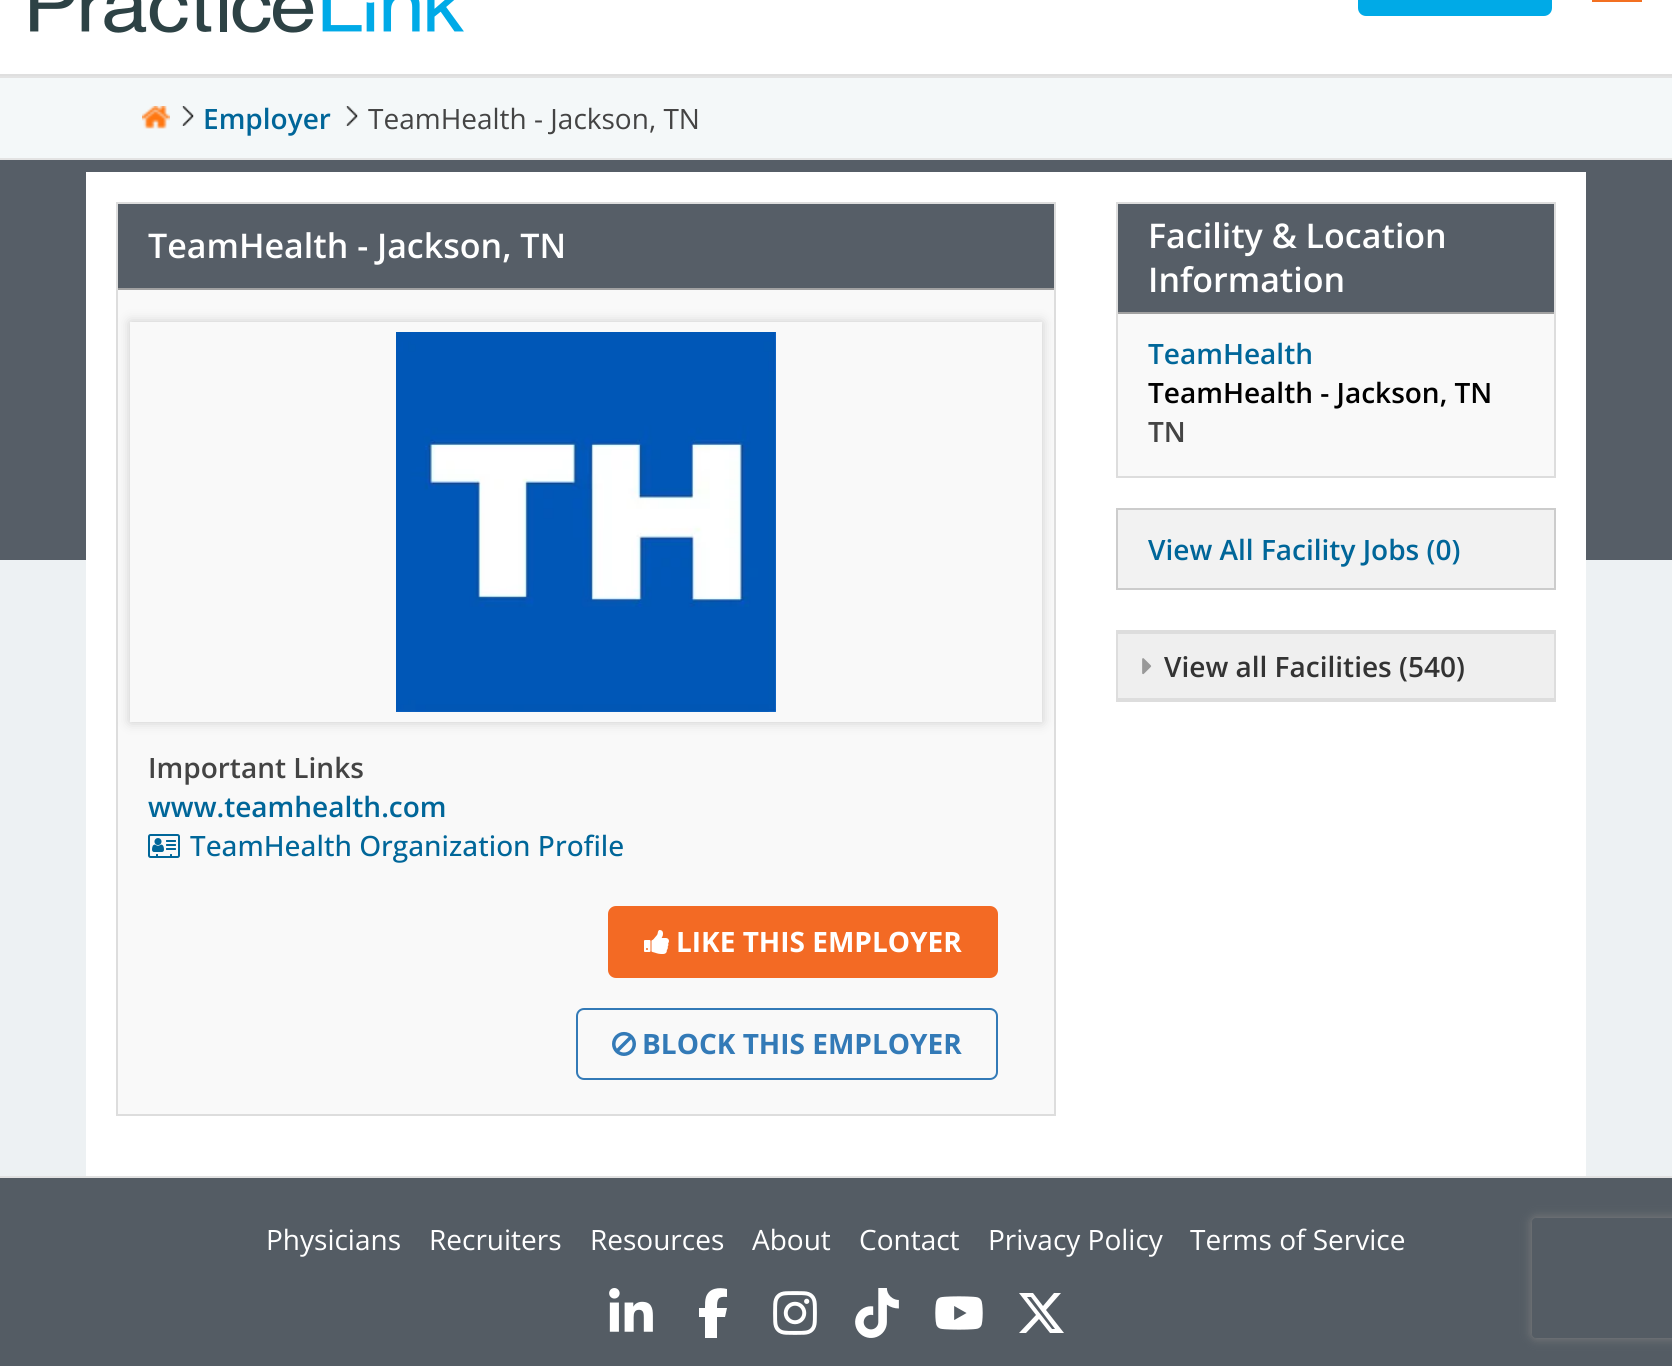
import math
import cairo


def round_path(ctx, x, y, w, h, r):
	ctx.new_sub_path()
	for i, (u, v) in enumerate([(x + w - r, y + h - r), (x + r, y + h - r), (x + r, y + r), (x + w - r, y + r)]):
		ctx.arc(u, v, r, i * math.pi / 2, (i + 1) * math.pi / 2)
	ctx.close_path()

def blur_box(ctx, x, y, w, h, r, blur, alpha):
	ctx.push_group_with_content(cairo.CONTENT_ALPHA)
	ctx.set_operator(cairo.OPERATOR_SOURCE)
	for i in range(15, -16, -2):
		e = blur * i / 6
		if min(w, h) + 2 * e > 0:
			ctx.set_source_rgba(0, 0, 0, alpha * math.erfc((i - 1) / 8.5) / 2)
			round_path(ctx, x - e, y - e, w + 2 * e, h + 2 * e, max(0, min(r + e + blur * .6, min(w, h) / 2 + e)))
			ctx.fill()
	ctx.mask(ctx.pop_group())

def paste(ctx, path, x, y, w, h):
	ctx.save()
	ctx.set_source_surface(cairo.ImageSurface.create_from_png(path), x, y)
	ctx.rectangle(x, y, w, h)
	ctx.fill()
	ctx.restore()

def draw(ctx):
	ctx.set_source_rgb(0.957, 0.969, 0.976)
	ctx.paint()
	ctx.set_source_rgb(1, 1, 1)
	ctx.rectangle(0, 0, 1672, 74)
	ctx.fill()
	ctx.set_source_rgb(0.875, 0.875, 0.875)
	ctx.rectangle(0, 74, 1672, 2)
	ctx.fill()
	paste(ctx, 'media/1.png', 30, 0, 434, 33)
	ctx.set_source_rgb(0, 0.667, 0.906)
	round_path(ctx, 1359, -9, 192, 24, 7)
	ctx.fill_preserve()
	ctx.stroke()
	ctx.set_source_rgb(0.953, 0.439, 0.129)
	ctx.rectangle(1592, 0, 50, 2)
	ctx.fill()
	ctx.set_source_rgb(0.89, 0.89, 0.89)
	ctx.rectangle(0, 76, 1672, 2)
	ctx.rectangle(0, 158, 1672, 2)
	ctx.fill()
	paste(ctx, 'media/2.png', 142, 106, 28, 23)
	paste(ctx, 'media/3.png', 181, 106, 13, 20)
	ctx.select_font_face('Open Sans SemiBold')
	ctx.set_font_size(28)
	ctx.set_source_rgb(0, 0.4, 0.6)
	ctx.move_to(203, 129)
	ctx.show_text('Employer')
	paste(ctx, 'media/4.png', 345, 106, 13, 20)
	ctx.select_font_face('Open Sans')
	ctx.set_source_rgb(0.267, 0.267, 0.267)
	ctx.move_to(368, 129)
	ctx.show_text('TeamHealth - Jackson, TN')
	ctx.set_source_rgb(0.929, 0.945, 0.953)
	ctx.rectangle(0, 560, 1672, 616)
	ctx.fill()
	ctx.set_source_rgb(0.337, 0.369, 0.404)
	ctx.rectangle(0, 160, 1672, 400)
	ctx.fill()
	ctx.set_source_rgb(1, 1, 1)
	ctx.rectangle(86, 172, 1500, 1004)
	ctx.fill()
	ctx.rectangle(117, 203, 938, 912)
	ctx.set_source_rgb(0.867, 0.867, 0.867)
	ctx.stroke()
	ctx.set_source_rgb(0.337, 0.369, 0.404)
	ctx.rectangle(118, 204, 936, 84)
	ctx.fill()
	ctx.set_source_rgb(0.631, 0.631, 0.631)
	ctx.rectangle(118, 288, 936, 2)
	ctx.fill()
	ctx.select_font_face('Open Sans SemiBold')
	ctx.set_font_size(34)
	ctx.set_source_rgb(1, 1, 1)
	ctx.move_to(148, 258)
	ctx.show_text('TeamHealth - Jackson, TN')
	ctx.set_source_rgb(0.973, 0.973, 0.973)
	ctx.rectangle(118, 290, 936, 824)
	ctx.fill()
	ctx.save()
	ctx.set_fill_rule(cairo.FILL_RULE_EVEN_ODD)
	ctx.new_path()
	ctx.move_to(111, 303)
	ctx.line_to(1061, 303)
	ctx.line_to(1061, 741)
	ctx.line_to(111, 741)
	ctx.close_path()
	ctx.move_to(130, 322)
	ctx.line_to(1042, 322)
	ctx.line_to(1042, 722)
	ctx.line_to(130, 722)
	ctx.close_path()
	ctx.clip()
	ctx.set_source_rgb(0.8, 0.8, 0.8)
	blur_box(ctx, 130, 322, 912, 400, 0, 6, 1)
	ctx.restore()
	paste(ctx, 'media/5.png', 396, 332, 380, 380)
	ctx.set_font_size(28)
	ctx.set_source_rgb(0.267, 0.267, 0.267)
	ctx.move_to(148, 778)
	ctx.show_text('Important Links')
	ctx.set_source_rgb(0, 0.4, 0.6)
	ctx.move_to(148, 817)
	ctx.show_text('www.teamhealth.com')
	paste(ctx, 'media/6.png', 148, 834, 32, 24)
	ctx.select_font_face('Open Sans Medium')
	ctx.move_to(190, 856)
	ctx.show_text('TeamHealth Organization Profile')
	ctx.set_source_rgb(0.953, 0.416, 0.141)
	round_path(ctx, 609, 907, 388, 70, 7)
	ctx.fill_preserve()
	ctx.stroke()
	paste(ctx, 'media/7.png', 644, 930, 25, 24)
	ctx.select_font_face('Open Sans', cairo.FONT_SLANT_NORMAL, cairo.FONT_WEIGHT_BOLD)
	ctx.set_source_rgb(1, 1, 1)
	ctx.move_to(676, 952)
	ctx.show_text('LIKE THIS EMPLOYER')
	round_path(ctx, 577, 1009, 420, 70, 7)
	ctx.set_source_rgb(0.2, 0.478, 0.718)
	ctx.stroke()
	paste(ctx, 'media/8.png', 612, 1031, 24, 25)
	ctx.move_to(642, 1054)
	ctx.show_text('BLOCK THIS EMPLOYER')
	ctx.rectangle(1117, 203, 438, 274)
	ctx.set_source_rgb(0.867, 0.867, 0.867)
	ctx.stroke()
	ctx.set_source_rgb(0.337, 0.369, 0.404)
	ctx.rectangle(1118, 204, 436, 108)
	ctx.fill()
	ctx.set_source_rgb(0.631, 0.631, 0.631)
	ctx.rectangle(1118, 312, 436, 2)
	ctx.fill()
	ctx.select_font_face('Open Sans SemiBold')
	ctx.set_font_size(34)
	ctx.set_source_rgb(1, 1, 1)
	ctx.move_to(1148, 248)
	ctx.show_text('Facility & Location')
	ctx.move_to(1148, 292)
	ctx.show_text('Information')
	ctx.set_source_rgb(0.973, 0.973, 0.973)
	ctx.rectangle(1118, 314, 436, 162)
	ctx.fill()
	ctx.set_font_size(28)
	ctx.set_source_rgb(0, 0.4, 0.6)
	ctx.move_to(1148, 364)
	ctx.show_text('TeamHealth')
	ctx.set_source_rgb(0, 0, 0)
	ctx.move_to(1148, 403)
	ctx.show_text('TeamHealth - Jackson, TN')
	ctx.set_source_rgb(0.267, 0.267, 0.267)
	ctx.move_to(1148, 442)
	ctx.show_text('TN')
	ctx.set_source_rgb(0.949, 0.949, 0.949)
	ctx.rectangle(1117, 509, 438, 80)
	ctx.fill_preserve()
	ctx.set_source_rgb(0.8, 0.8, 0.8)
	ctx.stroke()
	ctx.set_source_rgb(0, 0.4, 0.6)
	ctx.move_to(1148, 560)
	ctx.show_text('View All Facility Jobs (0)')
	ctx.rectangle(1117, 631, 438, 70)
	ctx.set_source_rgb(0.867, 0.867, 0.867)
	ctx.stroke()
	ctx.set_source_rgb(0.937, 0.937, 0.937)
	ctx.rectangle(1118, 634, 436, 64)
	ctx.fill()
	ctx.set_source_rgb(0.867, 0.867, 0.867)
	ctx.rectangle(1118, 632, 436, 2)
	ctx.rectangle(1118, 698, 436, 2)
	ctx.fill()
	paste(ctx, 'media/9.png', 1142, 658, 10, 17)
	ctx.set_source_rgb(0.2, 0.2, 0.2)
	ctx.move_to(1164, 677)
	ctx.show_text('View all Facilities (540)')
	ctx.set_source_rgb(0.329, 0.361, 0.392)
	ctx.rectangle(0, 1178, 1672, 188)
	ctx.fill()
	ctx.set_source_rgb(0.882, 0.882, 0.882)
	ctx.rectangle(0, 1176, 1672, 2)
	ctx.fill()
	ctx.select_font_face('Open Sans')
	ctx.set_source_rgb(1, 1, 1)
	for x, y, s in [
		(266, 1250, 'Physicians'),
		(429, 1250, 'Recruiters'),
		(590, 1250, 'Resources'),
		(752, 1250, 'About'),
		(859, 1250, 'Contact'),
		(988, 1250, 'Privacy Policy'),
		(1190, 1250, 'Terms of Service'),
	]:
		ctx.move_to(x, y)
		ctx.show_text(s)
	paste(ctx, 'media/10.png', 609, 1288, 44, 44)
	ctx.new_path()
	ctx.move_to(705, 1317)
	ctx.line_to(705, 1338)
	ctx.line_to(717, 1338)
	ctx.line_to(717, 1317)
	ctx.line_to(725, 1317)
	ctx.line_to(727, 1308)
	ctx.line_to(717, 1308)
	ctx.curve_to(717, 1299, 718, 1296, 727, 1297)
	ctx.line_to(727, 1289)
	ctx.curve_to(719, 1287, 709, 1288, 706, 1297)
	ctx.curve_to(705, 1300, 705, 1304, 705, 1308)
	ctx.line_to(699, 1308)
	ctx.line_to(699, 1317)
	ctx.close_path()
	ctx.fill()
	paste(ctx, 'media/11.png', 773, 1291, 44, 44)
	paste(ctx, 'media/12.png', 855, 1288, 44, 50)
	paste(ctx, 'media/13.png', 935, 1296, 48, 34)
	ctx.new_path()
	ctx.move_to(1054, 1293)
	ctx.line_to(1061, 1293)
	ctx.line_to(1046, 1310)
	ctx.line_to(1064, 1333)
	ctx.line_to(1050, 1333)
	ctx.line_to(1039, 1319)
	ctx.line_to(1026, 1333)
	ctx.line_to(1019, 1333)
	ctx.line_to(1036, 1315)
	ctx.line_to(1019, 1293)
	ctx.line_to(1033, 1293)
	ctx.line_to(1043, 1306)
	ctx.close_path()
	ctx.move_to(1052, 1329)
	ctx.line_to(1055, 1329)
	ctx.line_to(1031, 1297)
	ctx.line_to(1027, 1297)
	ctx.close_path()
	ctx.fill()
	ctx.save()
	ctx.set_fill_rule(cairo.FILL_RULE_EVEN_ODD)
	ctx.new_path()
	ctx.move_to(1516, 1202)
	ctx.line_to(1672, 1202)
	ctx.line_to(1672, 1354)
	ctx.line_to(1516, 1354)
	ctx.close_path()
	ctx.move_to(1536, 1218)
	ctx.line_to(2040, 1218)
	ctx.curve_to(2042, 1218, 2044, 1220, 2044, 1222)
	ctx.line_to(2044, 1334)
	ctx.curve_to(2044, 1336, 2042, 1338, 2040, 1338)
	ctx.line_to(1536, 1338)
	ctx.curve_to(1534, 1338, 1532, 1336, 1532, 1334)
	ctx.line_to(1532, 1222)
	ctx.curve_to(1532, 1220, 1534, 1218, 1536, 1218)
	ctx.close_path()
	ctx.clip()
	ctx.set_source_rgb(0.502, 0.502, 0.502)
	blur_box(ctx, 1532, 1218, 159, 120, 4, 5, 1)
	ctx.restore()


surface = cairo.ImageSurface(cairo.FORMAT_RGB24, 1672, 1366)
ctx = cairo.Context(surface)
options = cairo.FontOptions()
options.set_hint_metrics(cairo.HINT_METRICS_OFF)
options.set_hint_style(cairo.HINT_STYLE_NONE)
ctx.set_font_options(options)
ctx.set_miter_limit(4)
draw(ctx)
surface.write_to_png('image.png')
